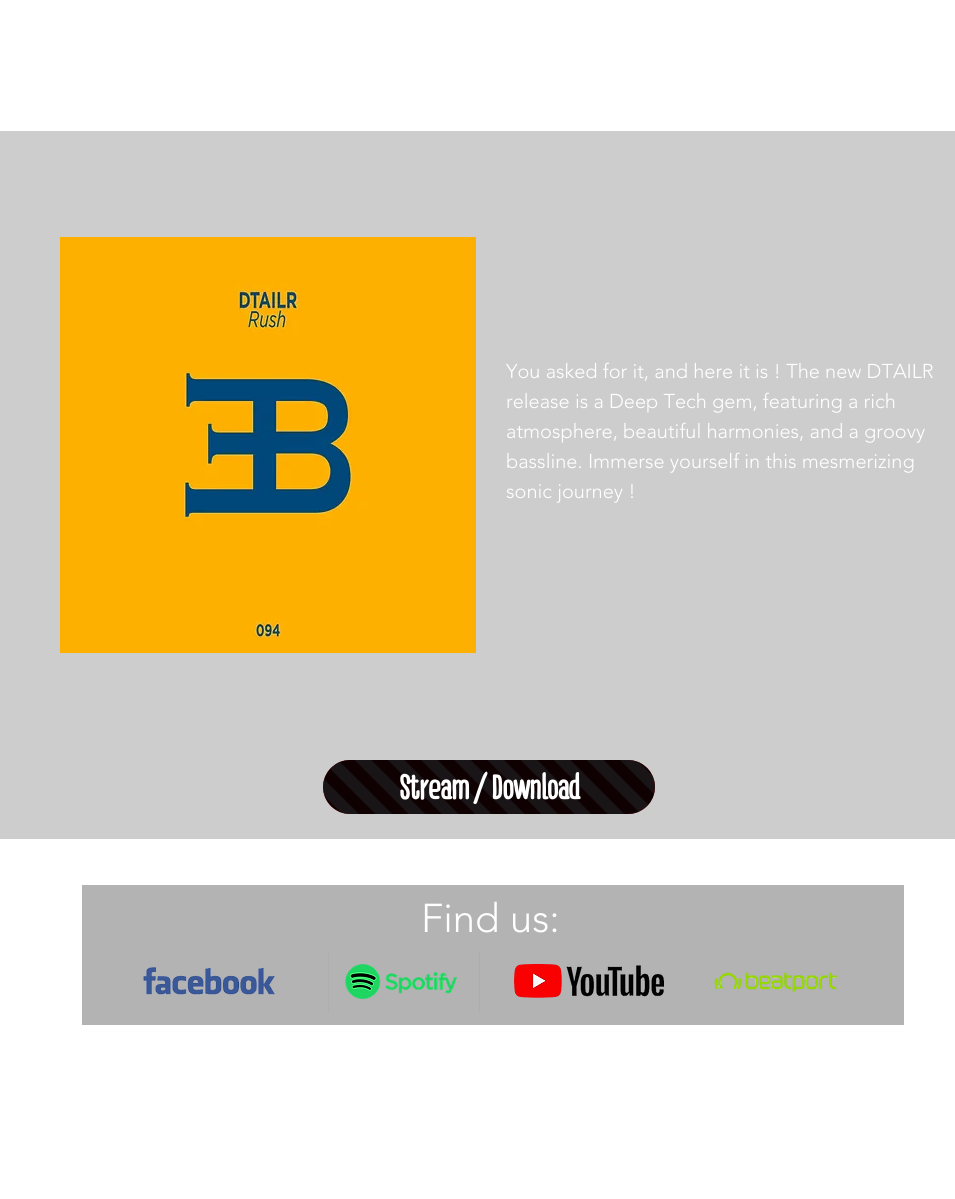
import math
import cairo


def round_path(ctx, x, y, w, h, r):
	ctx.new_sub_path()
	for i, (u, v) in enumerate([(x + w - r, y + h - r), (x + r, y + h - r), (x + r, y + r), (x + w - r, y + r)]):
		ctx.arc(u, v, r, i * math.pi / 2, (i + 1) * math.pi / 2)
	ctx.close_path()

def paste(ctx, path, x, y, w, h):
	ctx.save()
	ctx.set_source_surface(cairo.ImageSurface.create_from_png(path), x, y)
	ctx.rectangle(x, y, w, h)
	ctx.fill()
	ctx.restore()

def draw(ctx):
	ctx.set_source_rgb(1, 1, 1)
	ctx.paint()
	ctx.set_source_rgb(0.804, 0.804, 0.804)
	ctx.rectangle(0, 131, 955, 708)
	ctx.fill()
	paste(ctx, 'media/1.png', 60, 237, 416, 416)
	ctx.select_font_face('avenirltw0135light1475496 Light')
	ctx.set_font_size(20)
	ctx.set_source_rgb(1, 1, 1)
	for x, y, s in [
		(506, 378, 'You asked for it, and here it is ! The new DTAILR'),
		(506, 408, 'release is a Deep Tech gem, featuring a rich'),
		(506, 438, 'atmosphere, beautiful harmonies, and a groovy'),
		(506, 468, 'bassline. Immerse yourself in this mesmerizing'),
		(506, 498, 'sonic journey !'),
	]:
		ctx.move_to(x, y)
		ctx.show_text(s)
	ctx.set_source_rgb(0.584, 0.043, 0.043)
	round_path(ctx, 323, 760, 332, 54, 27)
	ctx.fill()
	paste(ctx, 'media/2.png', 323, 760, 332, 54)
	ctx.select_font_face('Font', cairo.FONT_SLANT_NORMAL, cairo.FONT_WEIGHT_BOLD)
	ctx.set_font_size(34)
	ctx.set_source_rgb(1, 1, 1)
	ctx.move_to(399, 799)
	ctx.show_text('Stream / Download')
	ctx.set_source_rgb(0.702, 0.702, 0.702)
	ctx.rectangle(82, 885, 822, 140)
	ctx.fill()
	paste(ctx, 'media/3.png', 143, 967, 132, 28)
	paste(ctx, 'media/4.png', 328, 951, 152, 62)
	paste(ctx, 'media/5.png', 514, 964, 150, 34)
	paste(ctx, 'media/6.png', 714, 972, 123, 20)
	ctx.select_font_face('avenirltw0135light1475496 Light')
	ctx.set_font_size(40)
	ctx.set_source_rgb(1, 1, 1)
	ctx.move_to(421, 932)
	ctx.show_text('Find us:')


surface = cairo.ImageSurface(cairo.FORMAT_RGB24, 955, 1199)
ctx = cairo.Context(surface)
options = cairo.FontOptions()
options.set_hint_metrics(cairo.HINT_METRICS_OFF)
options.set_hint_style(cairo.HINT_STYLE_NONE)
ctx.set_font_options(options)
ctx.set_miter_limit(4)
draw(ctx)
surface.write_to_png('image.png')
